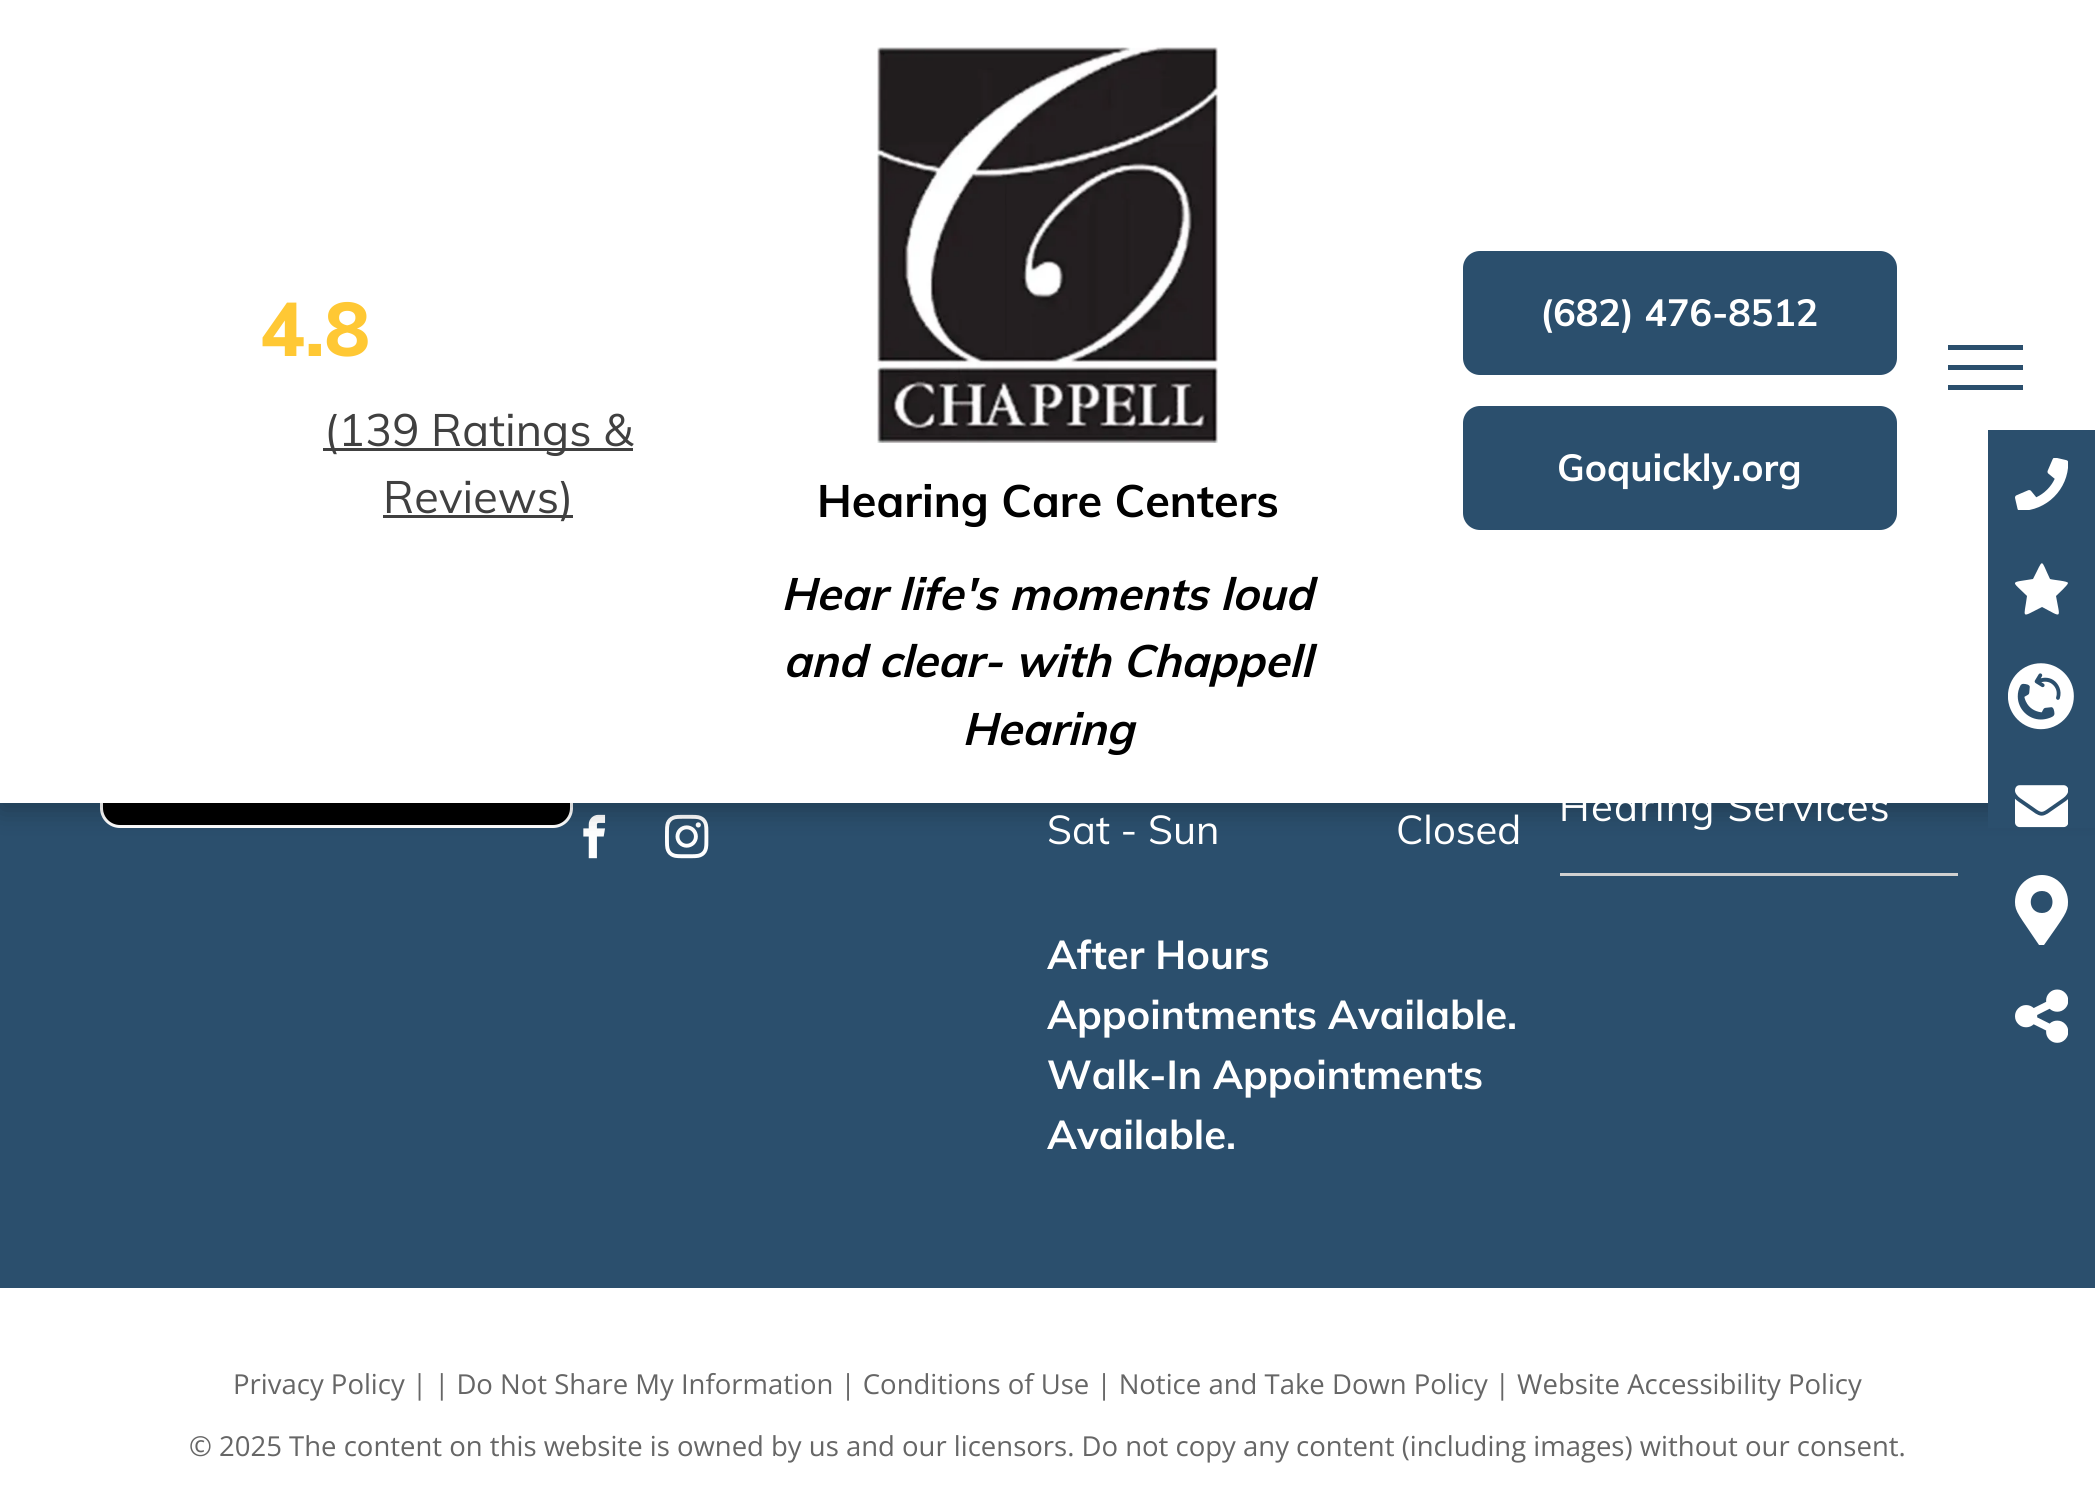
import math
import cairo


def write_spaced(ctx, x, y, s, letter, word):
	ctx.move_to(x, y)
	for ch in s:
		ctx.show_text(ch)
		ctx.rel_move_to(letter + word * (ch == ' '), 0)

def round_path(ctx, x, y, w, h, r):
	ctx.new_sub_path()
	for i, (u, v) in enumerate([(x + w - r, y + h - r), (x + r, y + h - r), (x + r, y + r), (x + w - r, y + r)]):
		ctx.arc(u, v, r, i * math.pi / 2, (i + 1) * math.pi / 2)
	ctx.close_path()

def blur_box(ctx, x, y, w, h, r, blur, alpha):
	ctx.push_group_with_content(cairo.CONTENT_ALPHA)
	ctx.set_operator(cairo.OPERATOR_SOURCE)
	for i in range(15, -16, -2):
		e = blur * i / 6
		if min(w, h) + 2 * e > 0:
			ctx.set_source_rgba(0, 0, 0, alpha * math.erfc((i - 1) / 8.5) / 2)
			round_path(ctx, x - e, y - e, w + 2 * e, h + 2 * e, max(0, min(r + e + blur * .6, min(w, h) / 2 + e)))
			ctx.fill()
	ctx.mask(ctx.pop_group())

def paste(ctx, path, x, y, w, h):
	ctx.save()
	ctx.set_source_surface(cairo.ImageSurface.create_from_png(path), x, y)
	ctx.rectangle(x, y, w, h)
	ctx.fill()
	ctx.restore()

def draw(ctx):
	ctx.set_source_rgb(1, 1, 1)
	ctx.paint()
	ctx.set_source_rgb(0.169, 0.31, 0.427)
	ctx.rectangle(0, 803, 2095, 485)
	ctx.fill()
	ctx.set_source_rgb(0, 0, 0)
	round_path(ctx, 101.5, 714.5, 470, 112, 18.5)
	ctx.fill_preserve()
	ctx.set_source_rgb(1, 1, 1)
	ctx.set_line_width(3)
	ctx.stroke()
	paste(ctx, 'media/2.png', 583, 814, 23, 45)
	paste(ctx, 'media/3.png', 665, 814, 44, 45)
	ctx.set_source_rgb(0, 0, 0)
	blur_box(ctx, 0, 8, 2095, 802, 0, 14, 0.25)
	ctx.set_source_rgb(1, 1, 1)
	ctx.rectangle(0, 0, 2095, 803)
	ctx.fill()
	ctx.select_font_face('Muli ExtraBold')
	ctx.set_font_size(75)
	ctx.set_source_rgb(1, 0.784, 0.204)
	ctx.move_to(260, 356)
	ctx.show_text('4.8')
	ctx.set_source_rgb(0.251, 0.251, 0.251)
	ctx.rectangle(323, 448, 310, 3)
	ctx.fill()
	ctx.select_font_face('Muli')
	ctx.set_font_size(45)
	ctx.move_to(324, 446)
	ctx.show_text('(139 Ratings &')
	ctx.rectangle(383, 515, 190, 3)
	ctx.fill()
	ctx.move_to(383, 513)
	ctx.show_text('Reviews)')
	ctx.set_source_rgb(0.169, 0.31, 0.427)
	round_path(ctx, 1461.5, 249.5, 437, 127, 18.5)
	ctx.fill_preserve()
	ctx.set_source_rgb(1, 1, 1)
	ctx.stroke()
	ctx.select_font_face('Muli', cairo.FONT_SLANT_NORMAL, cairo.FONT_WEIGHT_BOLD)
	ctx.set_font_size(37.5)
	ctx.move_to(1540, 326)
	ctx.show_text('(682) 476-8512')
	ctx.set_source_rgb(0.169, 0.31, 0.427)
	round_path(ctx, 1461.5, 404.5, 437, 127, 18.5)
	ctx.fill_preserve()
	ctx.set_source_rgb(1, 1, 1)
	ctx.stroke()
	ctx.move_to(1557, 481)
	ctx.show_text('Goquickly.org')
	paste(ctx, 'media/1.png', 877, 47, 341, 396)
	ctx.set_font_size(45)
	ctx.set_source_rgb(0, 0, 0)
	ctx.move_to(817, 517)
	ctx.show_text('Hearing Care Centers')
	ctx.select_font_face('Muli', cairo.FONT_SLANT_ITALIC, cairo.FONT_WEIGHT_BOLD)
	for x, y, s in [
		(781, 610, 'Hear life\'s moments loud'),
		(783, 677, 'and clear- with Chappell'),
		(962, 745, 'Hearing'),
	]:
		ctx.move_to(x, y)
		ctx.show_text(s)
	ctx.set_source_rgb(0.169, 0.31, 0.427)
	ctx.rectangle(1948, 345, 75, 5)
	ctx.rectangle(1948, 365, 75, 5)
	ctx.rectangle(1948, 385, 75, 5)
	ctx.fill()
	ctx.select_font_face('Muli')
	ctx.set_font_size(40)
	ctx.set_source_rgb(1, 1, 1)
	ctx.move_to(1047, 844)
	ctx.show_text('Sat - Sun')
	ctx.move_to(1396, 844)
	ctx.show_text('Closed')
	ctx.select_font_face('Muli', cairo.FONT_SLANT_NORMAL, cairo.FONT_WEIGHT_BOLD)
	for x, y, s in [
		(1047, 969, 'After Hours'),
		(1047, 1029, 'Appointments Available.'),
		(1047, 1089, 'Walk-In Appointments'),
		(1047, 1149, 'Available.'),
	]:
		ctx.move_to(x, y)
		ctx.show_text(s)
	ctx.select_font_face('Muli')
	write_spaced(ctx, 1559, 821, 'Hearing Services', 1.25, 0)
	ctx.set_source_rgb(0.82, 0.82, 0.82)
	ctx.rectangle(1560, 873, 398, 3)
	ctx.fill()
	ctx.set_source_rgb(0.169, 0.31, 0.427)
	ctx.rectangle(1988, 430, 107, 398)
	ctx.fill()
	paste(ctx, 'media/4.png', 2015, 458, 53, 52)
	ctx.set_source_rgb(1, 1, 1)
	ctx.new_path()
	ctx.move_to(2068, 583)
	ctx.curve_to(2068, 585, 2058, 594, 2056, 596)
	ctx.curve_to(2060, 619, 2063, 618, 2042, 607)
	ctx.curve_to(2020, 618, 2024, 619, 2027, 596)
	ctx.curve_to(2011, 580, 2009, 583, 2033, 579)
	ctx.curve_to(2044, 558, 2040, 558, 2050, 579)
	ctx.curve_to(2053, 580, 2068, 581, 2068, 583)
	ctx.close_path()
	ctx.fill()
	paste(ctx, 'media/5.png', 2008, 663, 66, 67)
	paste(ctx, 'media/6.png', 2015, 785, 53, 43)
	ctx.save()
	ctx.rectangle(2015, 875, 53, 70)
	ctx.clip()
	ctx.new_path()
	ctx.move_to(2039, 945)
	ctx.curve_to(2019, 915, 2015, 912, 2015, 902)
	ctx.curve_to(2015, 887, 2027, 875, 2042, 875)
	ctx.curve_to(2056, 875, 2068, 887, 2068, 902)
	ctx.curve_to(2068, 912, 2065, 915, 2044, 945)
	ctx.curve_to(2043, 947, 2040, 947, 2039, 945)
	ctx.close_path()
	ctx.move_to(2042, 913)
	ctx.curve_to(2056, 913, 2056, 891, 2042, 891)
	ctx.curve_to(2027, 891, 2027, 913, 2042, 913)
	ctx.close_path()
	ctx.fill()
	ctx.restore()
	paste(ctx, 'media/7.png', 2015, 989, 53, 54)
	ctx.select_font_face('Open Sans')
	ctx.set_font_size(27.5)
	ctx.set_source_rgb(0.4, 0.4, 0.4)
	ctx.move_to(233, 1394)
	ctx.show_text('Privacy Policy | | Do Not Share My Information | Conditions of Use | Notice and Take Down Policy | Website Accessibility Policy')
	ctx.move_to(189, 1456)
	ctx.show_text('© 2025 The content on this website is owned by us and our licensors. Do not copy any content (including images) without our consent.')


surface = cairo.ImageSurface(cairo.FORMAT_RGB24, 2095, 1500)
ctx = cairo.Context(surface)
options = cairo.FontOptions()
options.set_hint_metrics(cairo.HINT_METRICS_OFF)
options.set_hint_style(cairo.HINT_STYLE_NONE)
ctx.set_font_options(options)
ctx.set_miter_limit(4)
draw(ctx)
surface.write_to_png('image.png')
